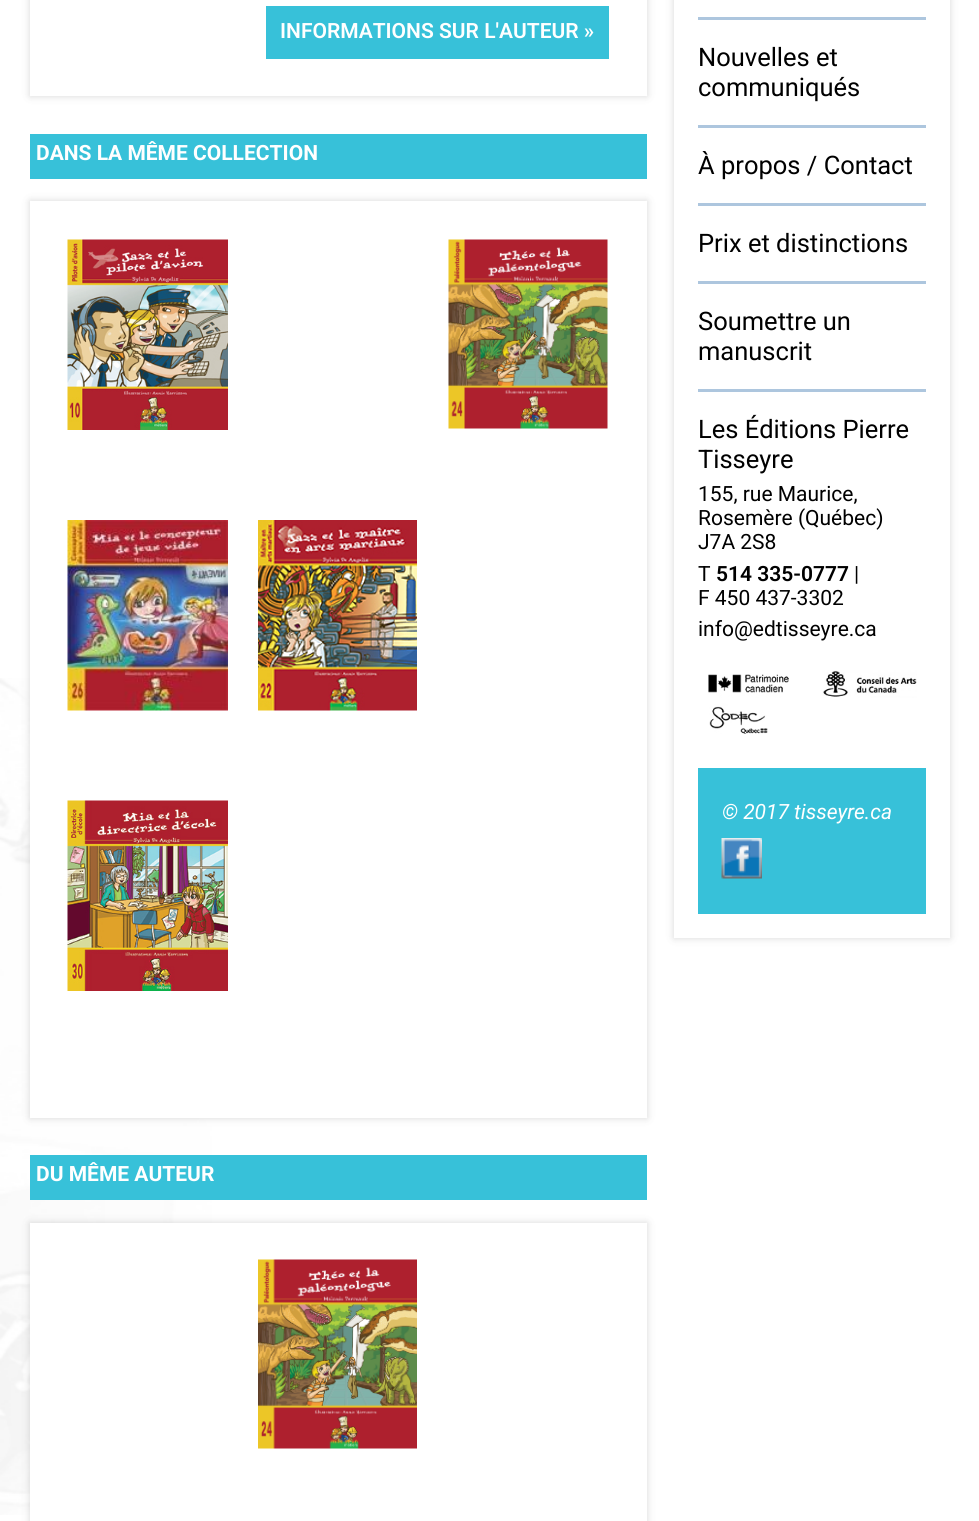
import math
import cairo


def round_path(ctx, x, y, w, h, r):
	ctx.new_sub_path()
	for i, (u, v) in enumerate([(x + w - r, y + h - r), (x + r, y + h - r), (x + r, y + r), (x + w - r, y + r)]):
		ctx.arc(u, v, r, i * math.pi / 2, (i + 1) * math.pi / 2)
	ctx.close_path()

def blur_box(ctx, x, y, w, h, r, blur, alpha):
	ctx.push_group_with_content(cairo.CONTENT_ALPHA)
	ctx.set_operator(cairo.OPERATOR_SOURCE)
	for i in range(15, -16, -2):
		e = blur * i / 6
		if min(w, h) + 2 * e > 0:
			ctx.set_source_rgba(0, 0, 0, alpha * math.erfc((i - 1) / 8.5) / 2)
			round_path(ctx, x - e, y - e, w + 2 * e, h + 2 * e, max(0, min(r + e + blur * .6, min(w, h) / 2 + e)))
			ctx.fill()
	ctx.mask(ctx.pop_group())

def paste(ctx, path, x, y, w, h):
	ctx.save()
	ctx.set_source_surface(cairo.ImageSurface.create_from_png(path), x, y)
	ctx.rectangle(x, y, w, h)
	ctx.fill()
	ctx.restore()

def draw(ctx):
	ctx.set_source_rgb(1, 1, 1)
	ctx.paint()
	paste(ctx, 'media/1.png', 0, 678, 212, 837)
	ctx.set_source_rgb(0.196, 0.196, 0.196)
	blur_box(ctx, 30, -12, 617, 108, 0, 4, 0.2)
	ctx.set_source_rgb(1, 1, 1)
	ctx.rectangle(30, 0, 617, 96)
	ctx.fill()
	ctx.set_source_rgb(0.216, 0.757, 0.851)
	ctx.rectangle(266, 6, 343, 53)
	ctx.fill()
	ctx.select_font_face('Roboto SemiBold')
	ctx.set_font_size(21)
	ctx.set_source_rgb(1, 1, 1)
	ctx.move_to(280, 38)
	ctx.show_text('INFORMATIONS SUR L\'AUTEUR »')
	ctx.set_source_rgb(0.216, 0.757, 0.851)
	ctx.rectangle(30, 134, 617, 45)
	ctx.fill()
	ctx.select_font_face('Roboto', cairo.FONT_SLANT_NORMAL, cairo.FONT_WEIGHT_BOLD)
	ctx.set_source_rgb(1, 1, 1)
	ctx.move_to(36, 160)
	ctx.show_text('DANS LA MÊME COLLECTION')
	ctx.set_source_rgb(0.196, 0.196, 0.196)
	blur_box(ctx, 30, 201, 617, 917, 0, 4, 0.2)
	ctx.set_source_rgb(1, 1, 1)
	ctx.rectangle(30, 201, 617, 917)
	ctx.fill()
	paste(ctx, 'media/2.png', 67, 239, 161, 191)
	paste(ctx, 'media/3.png', 448, 239, 160, 190)
	paste(ctx, 'media/4.png', 67, 520, 161, 191)
	paste(ctx, 'media/5.png', 258, 520, 159, 191)
	paste(ctx, 'media/6.png', 67, 800, 161, 191)
	ctx.set_source_rgb(0.216, 0.757, 0.851)
	ctx.rectangle(30, 1155, 617, 45)
	ctx.fill()
	ctx.set_source_rgb(1, 1, 1)
	ctx.move_to(36, 1181)
	ctx.show_text('DU MÊME AUTEUR')
	ctx.set_source_rgb(0.196, 0.196, 0.196)
	blur_box(ctx, 30, 1223, 617, 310, 0, 4, 0.2)
	ctx.set_source_rgb(1, 1, 1)
	ctx.rectangle(30, 1223, 617, 298)
	ctx.fill()
	paste(ctx, 'media/7.png', 258, 1259, 159, 190)
	ctx.set_source_rgb(0.196, 0.196, 0.196)
	blur_box(ctx, 674, -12, 276, 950, 0, 4, 0.2)
	ctx.set_source_rgb(1, 1, 1)
	ctx.rectangle(674, 0, 276, 938)
	ctx.fill()
	ctx.set_source_rgb(0.678, 0.776, 0.871)
	ctx.rectangle(698, 17, 228, 3)
	ctx.fill()
	ctx.select_font_face('Roboto')
	ctx.set_font_size(25.5)
	ctx.set_source_rgb(0, 0, 0)
	ctx.move_to(698, 66)
	ctx.show_text('Nouvelles et')
	ctx.move_to(698, 96)
	ctx.show_text('communiqués')
	ctx.set_source_rgb(0.678, 0.776, 0.871)
	ctx.rectangle(698, 125, 228, 3)
	ctx.fill()
	ctx.set_source_rgb(0, 0, 0)
	ctx.move_to(698, 174)
	ctx.show_text('À propos / Contact')
	ctx.set_source_rgb(0.678, 0.776, 0.871)
	ctx.rectangle(698, 203, 228, 3)
	ctx.fill()
	ctx.set_source_rgb(0, 0, 0)
	ctx.move_to(698, 252)
	ctx.show_text('Prix et distinctions')
	ctx.set_source_rgb(0.678, 0.776, 0.871)
	ctx.rectangle(698, 281, 228, 3)
	ctx.fill()
	ctx.set_source_rgb(0, 0, 0)
	ctx.move_to(698, 330)
	ctx.show_text('Soumettre un')
	ctx.move_to(698, 360)
	ctx.show_text('manuscrit')
	ctx.set_source_rgb(0.678, 0.776, 0.871)
	ctx.rectangle(698, 389, 228, 3)
	ctx.fill()
	ctx.set_source_rgb(0, 0, 0)
	ctx.move_to(698, 438)
	ctx.show_text('Les Éditions Pierre')
	ctx.move_to(698, 468)
	ctx.show_text('Tisseyre')
	ctx.set_font_size(21)
	for x, y, s in [
		(698, 501, '155, rue Maurice,'),
		(698, 525, 'Rosemère (Québec)'),
		(698, 549, 'J7A 2S8'),
		(698, 581, 'T'),
	]:
		ctx.move_to(x, y)
		ctx.show_text(s)
	ctx.select_font_face('Roboto SemiBold')
	ctx.move_to(716, 581)
	ctx.show_text('514 335‑0777')
	ctx.select_font_face('Roboto')
	for x, y, s in [
		(854, 581, '|'),
		(698, 605, 'F 450 437‑3302'),
		(698, 636, 'info@edtisseyre.ca'),
	]:
		ctx.move_to(x, y)
		ctx.show_text(s)
	paste(ctx, 'media/8.png', 708, 670, 209, 64)
	ctx.set_source_rgb(0.216, 0.757, 0.851)
	ctx.rectangle(698, 768, 228, 146)
	ctx.fill()
	ctx.select_font_face('Roboto', cairo.FONT_SLANT_ITALIC)
	ctx.set_source_rgb(1, 1, 1)
	ctx.move_to(722, 819)
	ctx.show_text('© 2017 tisseyre.ca')
	paste(ctx, 'media/9.png', 721, 838, 41, 41)


surface = cairo.ImageSurface(cairo.FORMAT_RGB24, 979, 1521)
ctx = cairo.Context(surface)
options = cairo.FontOptions()
options.set_hint_metrics(cairo.HINT_METRICS_OFF)
options.set_hint_style(cairo.HINT_STYLE_NONE)
ctx.set_font_options(options)
ctx.set_miter_limit(4)
draw(ctx)
surface.write_to_png('image.png')
